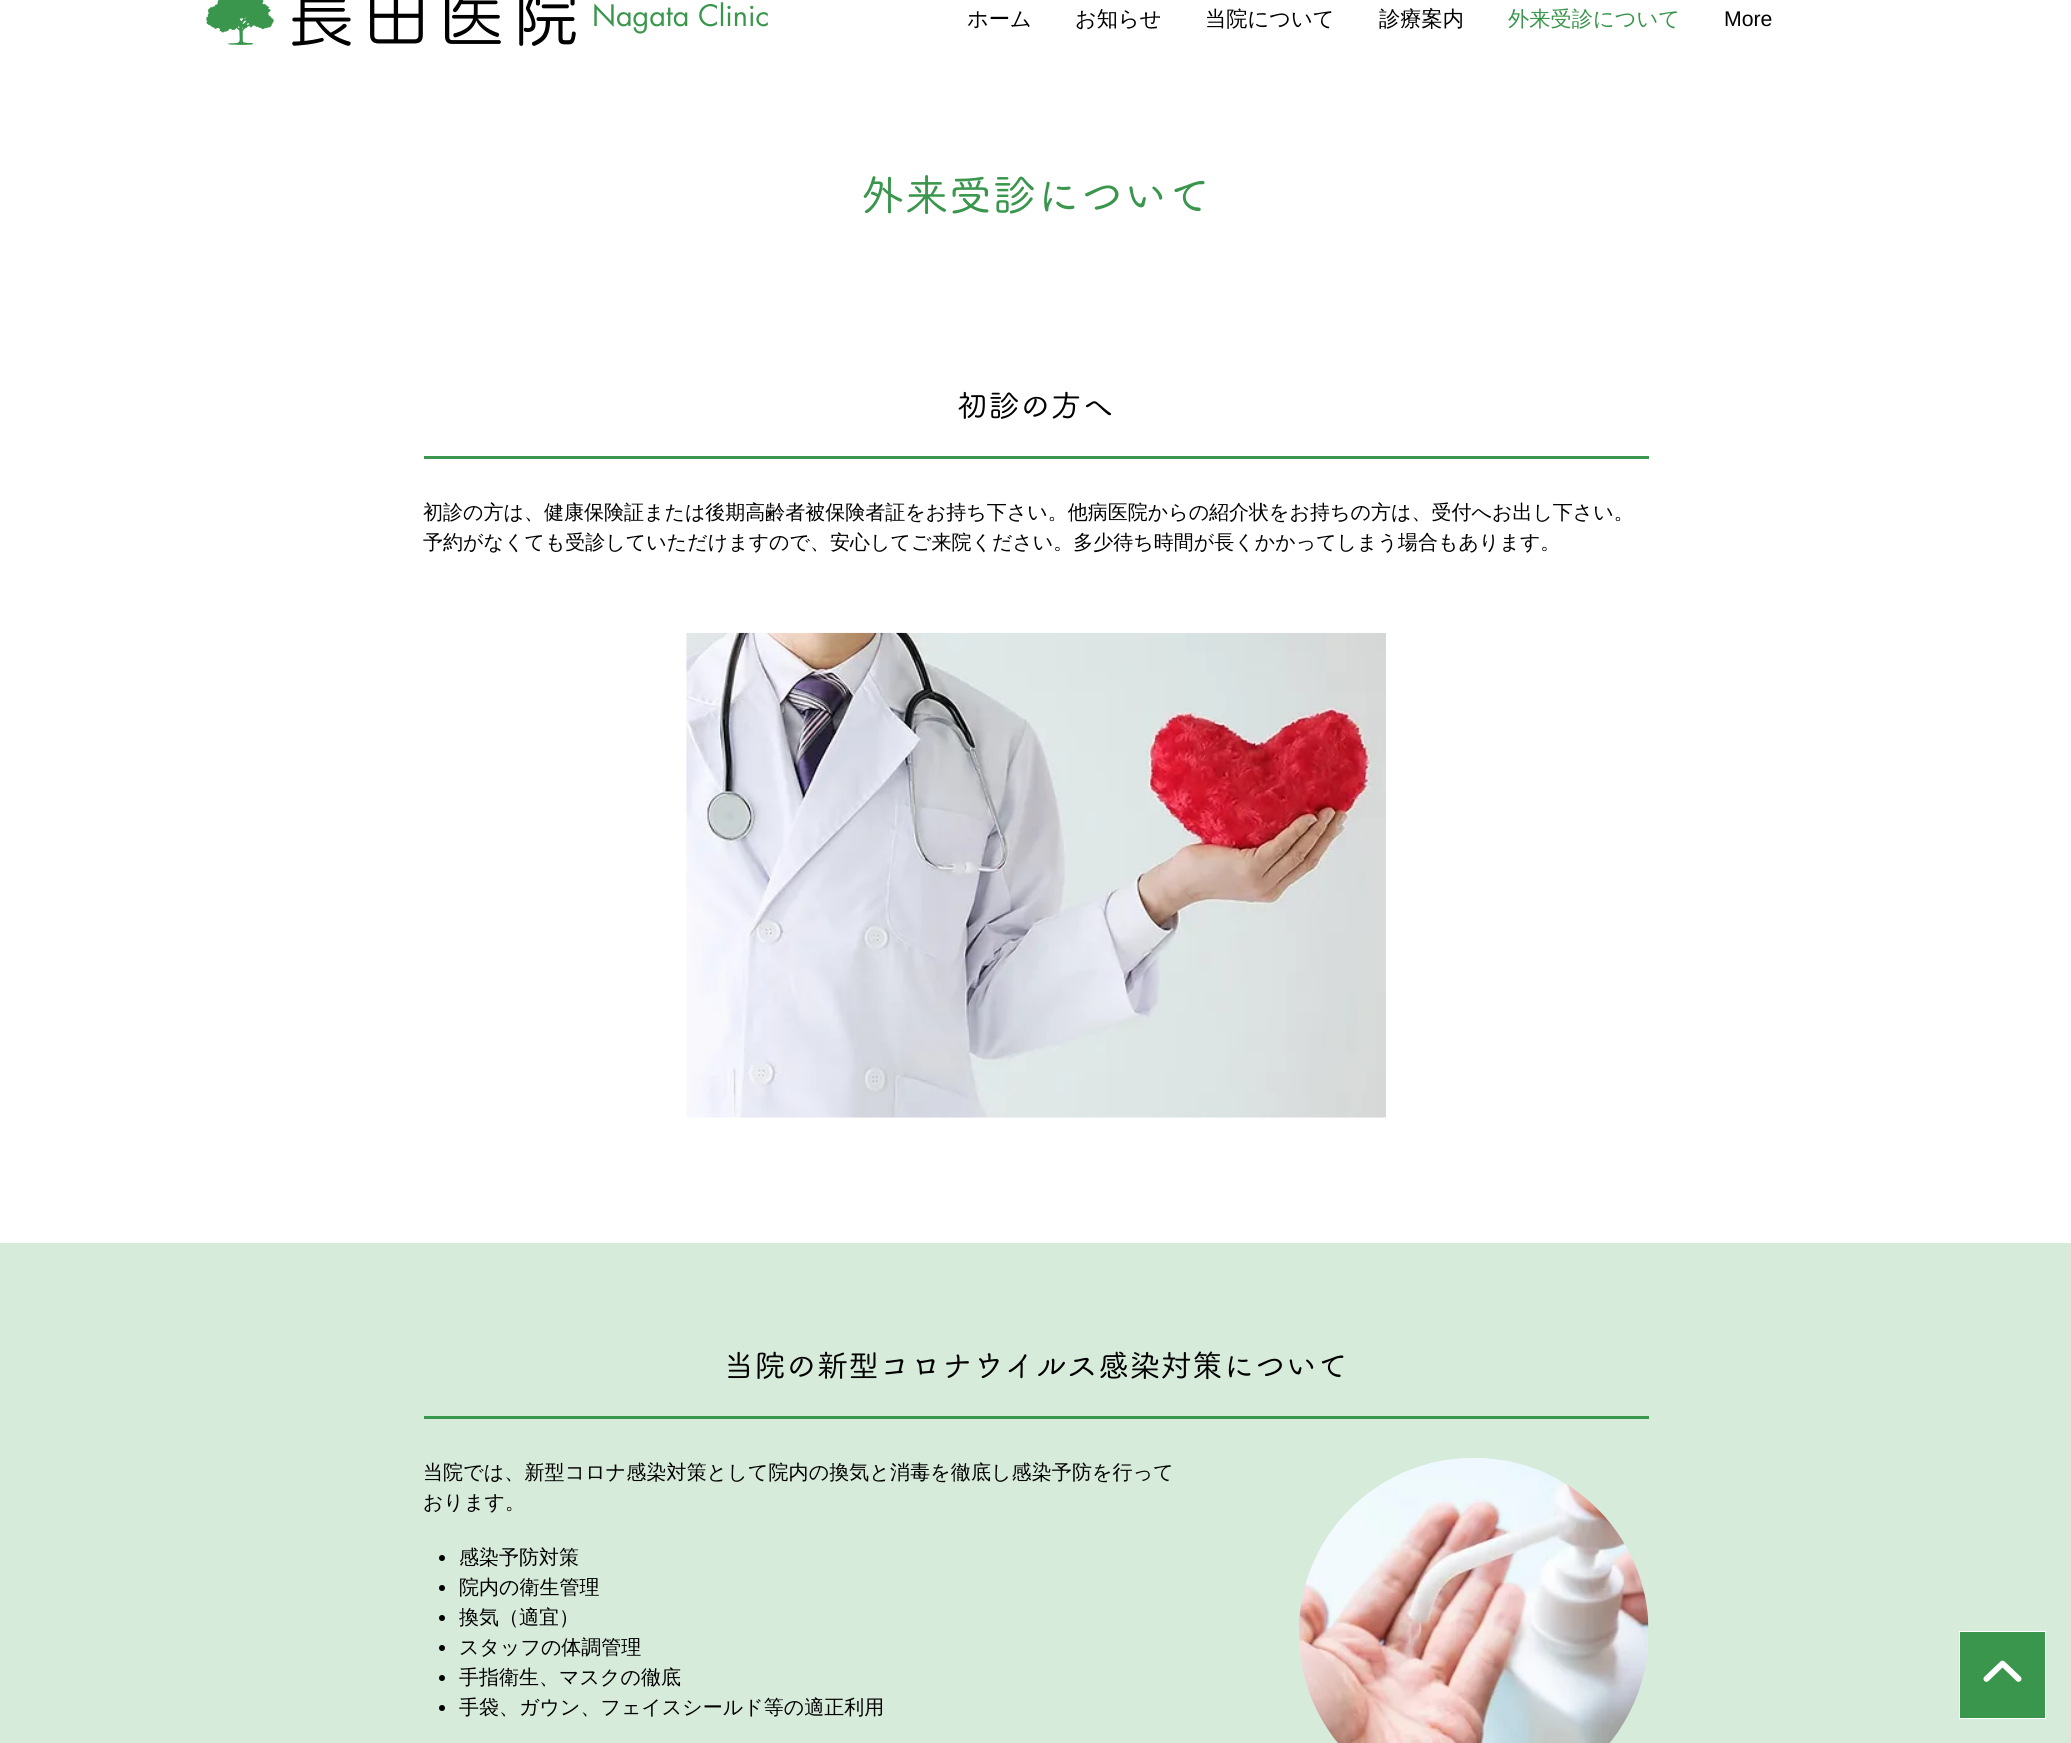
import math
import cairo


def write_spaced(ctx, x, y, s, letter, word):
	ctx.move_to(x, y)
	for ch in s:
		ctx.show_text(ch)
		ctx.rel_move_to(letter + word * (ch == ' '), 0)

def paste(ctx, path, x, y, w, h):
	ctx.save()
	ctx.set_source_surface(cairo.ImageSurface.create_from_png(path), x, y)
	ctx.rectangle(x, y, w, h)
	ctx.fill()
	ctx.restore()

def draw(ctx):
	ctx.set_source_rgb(1, 1, 1)
	ctx.paint()
	paste(ctx, 'media/1.png', 206, 0, 68, 45)
	ctx.select_font_face('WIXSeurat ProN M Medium')
	ctx.set_font_size(65)
	ctx.set_source_rgb(0, 0, 0)
	write_spaced(ctx, 289, 41, '長田医院', 10, 0)
	ctx.select_font_face('futura')
	ctx.set_font_size(28.75)
	ctx.set_source_rgb(0.224, 0.588, 0.298)
	ctx.move_to(592, 26)
	ctx.show_text('Nagata Clinic')
	ctx.select_font_face('WenQuanYi Zen Hei Medium')
	ctx.set_font_size(21.25)
	ctx.set_source_rgb(0, 0, 0)
	for x, y, s in [
		(967, 26, 'ホーム'),
		(1075, 26, 'お知らせ'),
		(1205, 26, '当院について'),
		(1379, 26, '診療案内'),
	]:
		ctx.move_to(x, y)
		ctx.show_text(s)
	ctx.set_source_rgb(0.224, 0.588, 0.298)
	ctx.move_to(1508, 26)
	ctx.show_text('外来受診について')
	ctx.select_font_face('Liberation Sans')
	ctx.set_source_rgb(0, 0, 0)
	ctx.move_to(1724, 26)
	ctx.show_text('More')
	ctx.select_font_face('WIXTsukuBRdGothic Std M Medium')
	ctx.set_font_size(43.75)
	ctx.set_source_rgb(0.224, 0.588, 0.298)
	ctx.move_to(861, 211)
	ctx.show_text('外来受診について')
	ctx.set_font_size(31.25)
	ctx.set_source_rgb(0, 0, 0)
	ctx.move_to(957, 417)
	ctx.show_text('初診の方へ')
	ctx.set_source_rgb(0.224, 0.588, 0.298)
	ctx.rectangle(424, 456, 1225, 3)
	ctx.fill()
	ctx.select_font_face('WenQuanYi Zen Hei Medium')
	ctx.set_font_size(20)
	ctx.set_source_rgb(0, 0, 0)
	ctx.move_to(423, 519)
	ctx.show_text('初診の方は、健康保険証または後期高齢者被保険者証をお持ち下さい。他病医院からの紹介状をお持ちの方は、受付へお出し下さい。')
	ctx.move_to(423, 549)
	ctx.show_text('予約がなくても受診していただけますので、安心してご来院ください。多少待ち時間が長くかかってしまう場合もあります。')
	paste(ctx, 'media/2.png', 686, 632, 700, 486)
	ctx.set_source_rgb(0.843, 0.918, 0.859)
	ctx.rectangle(0, 1243, 2071, 500)
	ctx.fill()
	ctx.select_font_face('WIXTsukuBRdGothic Std M Medium')
	ctx.set_font_size(31.25)
	ctx.set_source_rgb(0, 0, 0)
	ctx.move_to(723, 1377)
	ctx.show_text('当院の新型コロナウイルス感染対策について')
	ctx.set_source_rgb(0.224, 0.588, 0.298)
	ctx.rectangle(424, 1416, 1225, 3)
	ctx.fill()
	ctx.select_font_face('WenQuanYi Zen Hei Medium')
	ctx.set_font_size(20)
	ctx.set_source_rgb(0, 0, 0)
	write_spaced(ctx, 423, 1479, '当院では、新型コロナ感染対策として院内の換気と消毒を徹底し感染予防を行って', 0.1, 0)
	ctx.move_to(423, 1509)
	ctx.show_text('おります。')
	paste(ctx, 'media/3.png', 1299, 1458, 350, 285)
	ctx.arc(442, 1558, 3, 0, 2 * math.pi)
	ctx.fill()
	ctx.move_to(459, 1564)
	ctx.show_text('感染予防対策')
	ctx.new_path()
	ctx.arc(442, 1588, 3, 0, 2 * math.pi)
	ctx.fill()
	ctx.move_to(459, 1594)
	ctx.show_text('院内の衛生管理')
	ctx.new_path()
	ctx.arc(442, 1618, 3, 0, 2 * math.pi)
	ctx.fill()
	ctx.move_to(459, 1624)
	ctx.show_text('換気（適宜）')
	ctx.new_path()
	ctx.arc(442, 1648, 3, 0, 2 * math.pi)
	ctx.fill()
	ctx.move_to(459, 1654)
	ctx.show_text('スタッフの体調管理')
	ctx.new_path()
	ctx.arc(442, 1678, 3, 0, 2 * math.pi)
	ctx.fill()
	ctx.move_to(459, 1684)
	ctx.show_text('手指衛生、マスクの徹底')
	ctx.new_path()
	ctx.arc(442, 1708, 3, 0, 2 * math.pi)
	ctx.fill()
	ctx.move_to(459, 1714)
	ctx.show_text('手袋、ガウン、フェイスシールド等の適正利用')
	ctx.set_source_rgb(0.224, 0.588, 0.298)
	ctx.rectangle(1959.5, 1631.5, 86, 87)
	ctx.fill_preserve()
	ctx.set_source_rgb(1, 1, 1)
	ctx.set_line_width(1)
	ctx.stroke()
	paste(ctx, 'media/4.png', 1983, 1660, 39, 22)


surface = cairo.ImageSurface(cairo.FORMAT_RGB24, 2071, 1743)
ctx = cairo.Context(surface)
options = cairo.FontOptions()
options.set_hint_metrics(cairo.HINT_METRICS_OFF)
options.set_hint_style(cairo.HINT_STYLE_NONE)
ctx.set_font_options(options)
ctx.set_miter_limit(4)
draw(ctx)
surface.write_to_png('image.png')
